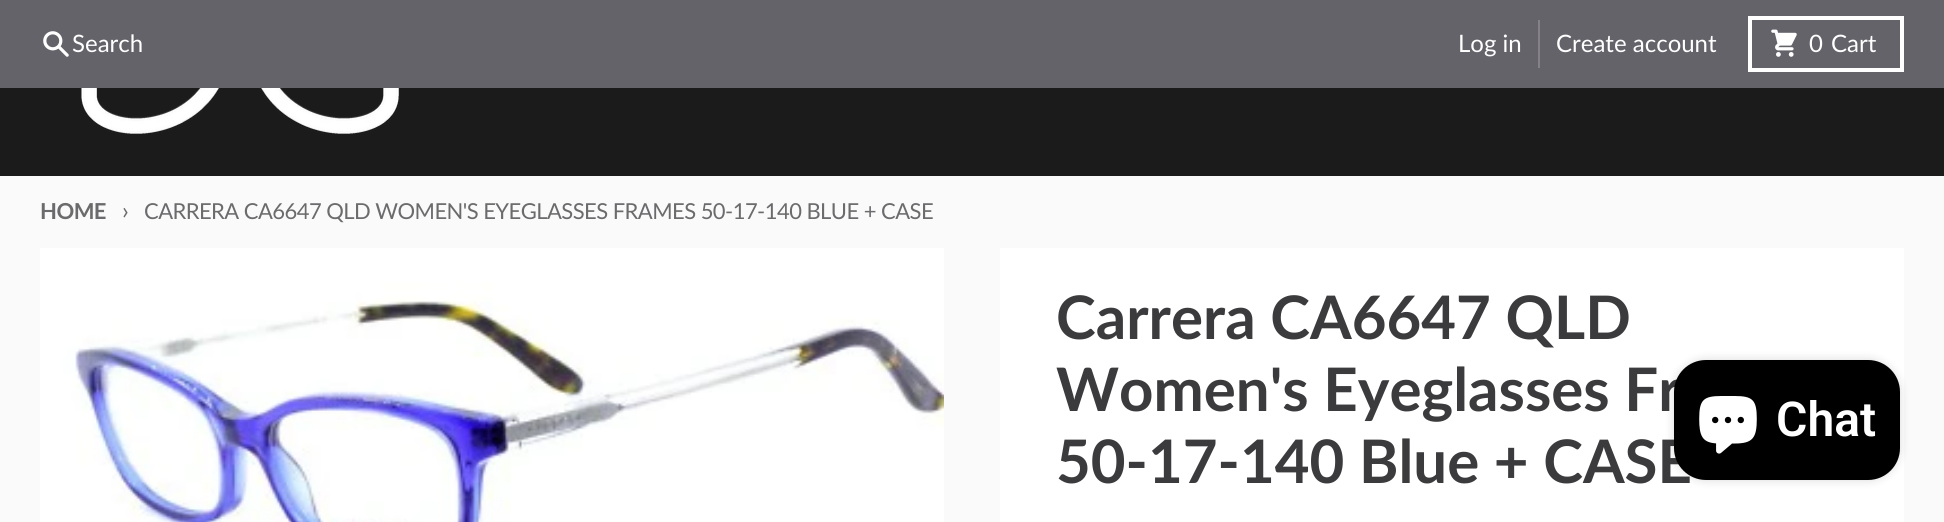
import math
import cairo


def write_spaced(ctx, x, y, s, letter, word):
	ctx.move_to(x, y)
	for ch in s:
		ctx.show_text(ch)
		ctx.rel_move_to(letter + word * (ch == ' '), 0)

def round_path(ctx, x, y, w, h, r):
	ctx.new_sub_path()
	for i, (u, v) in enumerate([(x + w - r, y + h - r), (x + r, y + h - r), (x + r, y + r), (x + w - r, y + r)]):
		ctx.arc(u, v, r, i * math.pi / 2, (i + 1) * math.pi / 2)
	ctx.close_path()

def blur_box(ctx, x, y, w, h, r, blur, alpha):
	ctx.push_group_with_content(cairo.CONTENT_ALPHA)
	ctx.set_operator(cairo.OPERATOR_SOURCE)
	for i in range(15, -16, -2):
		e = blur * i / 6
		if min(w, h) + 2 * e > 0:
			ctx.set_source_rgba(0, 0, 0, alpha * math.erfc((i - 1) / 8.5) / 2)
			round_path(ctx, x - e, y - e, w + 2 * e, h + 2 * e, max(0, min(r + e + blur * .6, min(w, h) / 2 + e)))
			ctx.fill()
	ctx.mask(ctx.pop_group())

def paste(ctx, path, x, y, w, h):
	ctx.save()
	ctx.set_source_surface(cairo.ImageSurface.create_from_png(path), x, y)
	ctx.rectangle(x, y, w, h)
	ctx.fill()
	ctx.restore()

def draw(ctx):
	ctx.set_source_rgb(0.106, 0.106, 0.106)
	ctx.paint()
	ctx.set_source_rgb(0.396, 0.388, 0.416)
	ctx.rectangle(0, 0, 1944, 88)
	ctx.fill()
	paste(ctx, 'media/1.png', 43, 31, 26, 26)
	ctx.select_font_face('Lato')
	ctx.set_font_size(24)
	ctx.set_source_rgb(1, 1, 1)
	ctx.move_to(72, 52)
	ctx.show_text('Search')
	ctx.move_to(1458, 52)
	ctx.show_text('Log in')
	ctx.set_source_rgb(0.518, 0.51, 0.533)
	ctx.rectangle(1538, 20, 2, 48)
	ctx.fill()
	ctx.set_source_rgb(1, 1, 1)
	ctx.move_to(1556, 52)
	ctx.show_text('Create account')
	ctx.rectangle(1750, 18, 152, 52)
	ctx.set_line_width(4)
	ctx.stroke()
	paste(ctx, 'media/2.png', 1771, 29, 26, 28)
	ctx.move_to(1809, 52)
	ctx.show_text('0')
	ctx.move_to(1831, 52)
	ctx.show_text('Cart')
	paste(ctx, 'media/3.png', 81, 88, 318, 46)
	ctx.set_source_rgb(0.98, 0.98, 0.98)
	ctx.rectangle(0, 176, 1944, 346)
	ctx.fill()
	ctx.select_font_face('Lato', cairo.FONT_SLANT_NORMAL, cairo.FONT_WEIGHT_BOLD)
	ctx.set_font_size(22)
	ctx.set_source_rgb(0.42, 0.416, 0.424)
	write_spaced(ctx, 40, 219, 'HOME', -0.55, 0)
	ctx.select_font_face('Lato')
	ctx.set_font_size(24)
	write_spaced(ctx, 122, 219, '›', -0.55, 0)
	ctx.set_font_size(22)
	write_spaced(ctx, 144, 219, 'CARRERA CA6647 QLD WOMEN\'S EYEGLASSES FRAMES 50-17-140 BLUE + CASE', -0.55, 0)
	paste(ctx, 'media/4.png', 40, 248, 904, 274)
	ctx.set_source_rgb(1, 1, 1)
	ctx.rectangle(1000, 248, 904, 274)
	ctx.fill()
	ctx.select_font_face('Lato', cairo.FONT_SLANT_NORMAL, cairo.FONT_WEIGHT_BOLD)
	ctx.set_font_size(60)
	ctx.set_source_rgb(0.231, 0.227, 0.239)
	for x, y, s in [
		(1056, 339, 'Carrera CA6647 QLD'),
		(1056, 411, 'Women\'s Eyeglasses Fr'),
		(1056, 483, '50-17-140 Blue + CASE'),
	]:
		ctx.move_to(x, y)
		ctx.show_text(s)
	ctx.set_source_rgb(0, 0, 0)
	blur_box(ctx, 1674, 360, 226, 120, 32, 5, 0.15)
	ctx.set_source_rgb(0, 0, 0)
	round_path(ctx, 1674, 360, 226, 120, 32)
	ctx.fill()
	paste(ctx, 'media/5.png', 1699, 396, 58, 58)
	ctx.select_font_face('Roboto SemiBold')
	ctx.set_font_size(48)
	ctx.set_source_rgb(1, 1, 1)
	ctx.move_to(1776, 436)
	ctx.show_text('Chat')


surface = cairo.ImageSurface(cairo.FORMAT_RGB24, 1944, 522)
ctx = cairo.Context(surface)
options = cairo.FontOptions()
options.set_hint_metrics(cairo.HINT_METRICS_OFF)
options.set_hint_style(cairo.HINT_STYLE_NONE)
ctx.set_font_options(options)
ctx.set_miter_limit(4)
draw(ctx)
surface.write_to_png('image.png')
